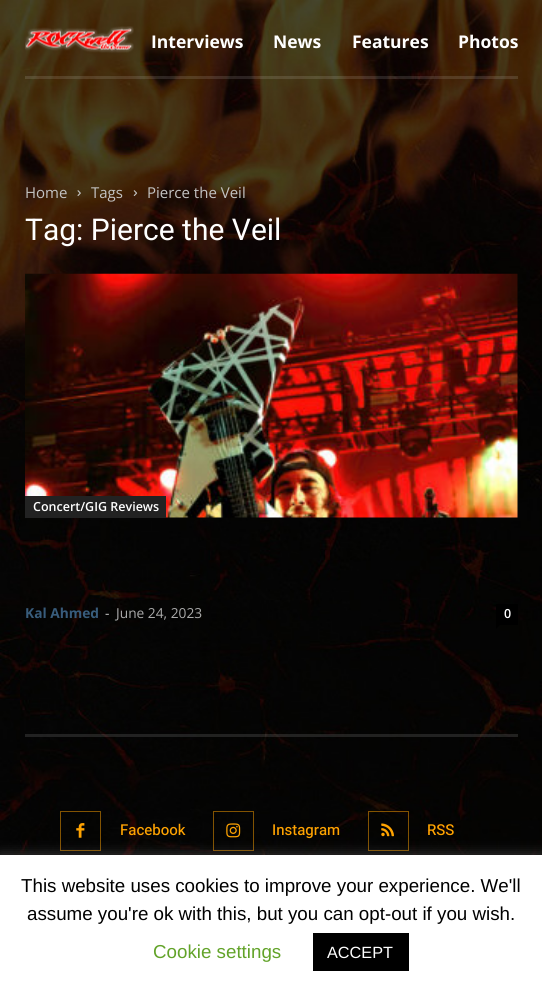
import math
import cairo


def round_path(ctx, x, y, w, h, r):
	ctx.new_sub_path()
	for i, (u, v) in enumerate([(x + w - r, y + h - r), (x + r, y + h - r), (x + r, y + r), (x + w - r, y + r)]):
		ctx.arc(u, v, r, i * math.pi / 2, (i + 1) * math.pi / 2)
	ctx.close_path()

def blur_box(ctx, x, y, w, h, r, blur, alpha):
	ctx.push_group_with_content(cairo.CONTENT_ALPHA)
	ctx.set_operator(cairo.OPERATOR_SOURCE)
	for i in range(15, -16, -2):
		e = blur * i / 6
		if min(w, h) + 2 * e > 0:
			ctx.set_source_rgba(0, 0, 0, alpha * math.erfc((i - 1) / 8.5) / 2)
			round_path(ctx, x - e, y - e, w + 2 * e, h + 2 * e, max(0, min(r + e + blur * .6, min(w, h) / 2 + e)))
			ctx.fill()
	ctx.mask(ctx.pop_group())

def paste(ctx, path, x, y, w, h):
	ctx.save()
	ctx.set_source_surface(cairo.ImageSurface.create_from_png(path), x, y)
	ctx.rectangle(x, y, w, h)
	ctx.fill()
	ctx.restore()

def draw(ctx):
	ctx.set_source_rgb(1, 1, 1)
	ctx.paint()
	paste(ctx, 'media/1.png', 0, 0, 542, 855)
	paste(ctx, 'media/2.png', 25, 26, 109, 27)
	ctx.select_font_face('Open Sans', cairo.FONT_SLANT_NORMAL, cairo.FONT_WEIGHT_BOLD)
	ctx.set_font_size(17.5)
	ctx.set_source_rgb(1, 1, 1)
	for x, y, s in [
		(151, 48, 'Interviews'),
		(273, 48, 'News'),
		(352, 48, 'Features'),
		(458, 48, 'Photos'),
	]:
		ctx.move_to(x, y)
		ctx.show_text(s)
	ctx.set_source_rgba(1, 0.988, 0.988, 0.12)
	ctx.rectangle(25, 76, 493, 3)
	ctx.fill()
	ctx.select_font_face('Open Sans')
	ctx.set_font_size(15)
	ctx.set_source_rgb(0.765, 0.765, 0.765)
	ctx.move_to(25, 198)
	ctx.show_text('Home')
	paste(ctx, 'media/3.png', 77, 190, 4, 6)
	ctx.move_to(91, 198)
	ctx.show_text('Tags')
	paste(ctx, 'media/4.png', 133, 190, 5, 6)
	ctx.move_to(147, 198)
	ctx.show_text('Pierce the Veil')
	ctx.select_font_face('Roboto')
	ctx.set_font_size(30)
	ctx.set_source_rgb(1, 1, 1)
	ctx.move_to(25, 240)
	ctx.show_text('Tag: Pierce the Veil')
	paste(ctx, 'media/5.png', 25, 273, 493, 245)
	ctx.set_source_rgb(0.133, 0.133, 0.133)
	ctx.rectangle(25, 496, 141, 22)
	ctx.fill()
	ctx.select_font_face('Open Sans SemiBold')
	ctx.set_font_size(12.5)
	ctx.set_source_rgb(1, 1, 1)
	ctx.move_to(33, 511)
	ctx.show_text('Concert/GIG Reviews')
	ctx.select_font_face('Open Sans', cairo.FONT_SLANT_NORMAL, cairo.FONT_WEIGHT_BOLD)
	ctx.set_font_size(13.75)
	ctx.set_source_rgb(0.22, 0.361, 0.482)
	ctx.move_to(25, 618)
	ctx.show_text('Kal Ahmed')
	ctx.select_font_face('Open Sans')
	ctx.set_source_rgb(0.8, 0.8, 0.8)
	ctx.move_to(105, 618)
	ctx.show_text('-')
	ctx.set_source_rgb(0.667, 0.667, 0.667)
	ctx.move_to(116, 618)
	ctx.show_text('June 24, 2023')
	ctx.set_source_rgb(0, 0, 0)
	ctx.rectangle(496, 604, 22, 21)
	ctx.fill()
	ctx.select_font_face('Open Sans SemiBold')
	ctx.set_font_size(12.5)
	ctx.set_source_rgb(1, 1, 1)
	ctx.move_to(504, 618)
	ctx.show_text('0')
	ctx.set_source_rgb(0, 0, 0)
	ctx.new_path()
	ctx.move_to(496, 625)
	ctx.line_to(500, 625)
	ctx.line_to(496, 629)
	ctx.close_path()
	ctx.fill()
	ctx.set_source_rgba(1, 0.988, 0.988, 0.12)
	ctx.rectangle(25, 734, 493, 3)
	ctx.fill()
	ctx.rectangle(60.5, 811.5, 40, 39)
	ctx.set_source_rgba(1, 0.639, 0.004, 0.5)
	ctx.set_line_width(1)
	ctx.stroke()
	paste(ctx, 'media/6.png', 76, 823, 9, 15)
	ctx.select_font_face('Heebo Medium')
	ctx.set_font_size(15)
	ctx.set_source_rgb(1, 0.639, 0.004)
	ctx.move_to(120, 835)
	ctx.show_text('Facebook')
	ctx.rectangle(213.5, 811.5, 40, 39)
	ctx.set_source_rgba(1, 0.639, 0.004, 0.5)
	ctx.stroke()
	paste(ctx, 'media/7.png', 226, 823, 15, 15)
	ctx.set_source_rgb(1, 0.639, 0.004)
	ctx.move_to(272, 835)
	ctx.show_text('Instagram')
	ctx.rectangle(368.5, 811.5, 40, 39)
	ctx.set_source_rgba(1, 0.639, 0.004, 0.5)
	ctx.stroke()
	paste(ctx, 'media/8.png', 381, 823, 13, 14)
	ctx.set_source_rgb(1, 0.639, 0.004)
	ctx.move_to(427, 835)
	ctx.show_text('RSS')
	ctx.set_source_rgb(0.675, 0.671, 0.671)
	blur_box(ctx, 0, 854, 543, 137, 0, 6, 0.3)
	ctx.set_source_rgb(1, 1, 1)
	ctx.rectangle(0, 855, 542, 137)
	ctx.fill()
	ctx.select_font_face('Liberation Sans')
	ctx.set_font_size(18.75)
	ctx.set_source_rgb(0, 0, 0)
	ctx.move_to(21, 892)
	ctx.show_text('This website uses cookies to improve your experience. We\'ll')
	ctx.move_to(27, 920)
	ctx.show_text('assume you\'re ok with this, but you can opt-out if you wish.')
	ctx.set_source_rgb(0.384, 0.639, 0.161)
	ctx.move_to(153, 958)
	ctx.show_text('Cookie settings')
	ctx.set_source_rgb(0, 0, 0)
	ctx.rectangle(313, 933, 96, 38)
	ctx.fill()
	ctx.set_font_size(16.25)
	ctx.set_source_rgb(1, 1, 1)
	ctx.move_to(327, 958)
	ctx.show_text('ACCEPT')


surface = cairo.ImageSurface(cairo.FORMAT_RGB24, 542, 992)
ctx = cairo.Context(surface)
options = cairo.FontOptions()
options.set_hint_metrics(cairo.HINT_METRICS_OFF)
options.set_hint_style(cairo.HINT_STYLE_NONE)
ctx.set_font_options(options)
ctx.set_miter_limit(4)
draw(ctx)
surface.write_to_png('image.png')
